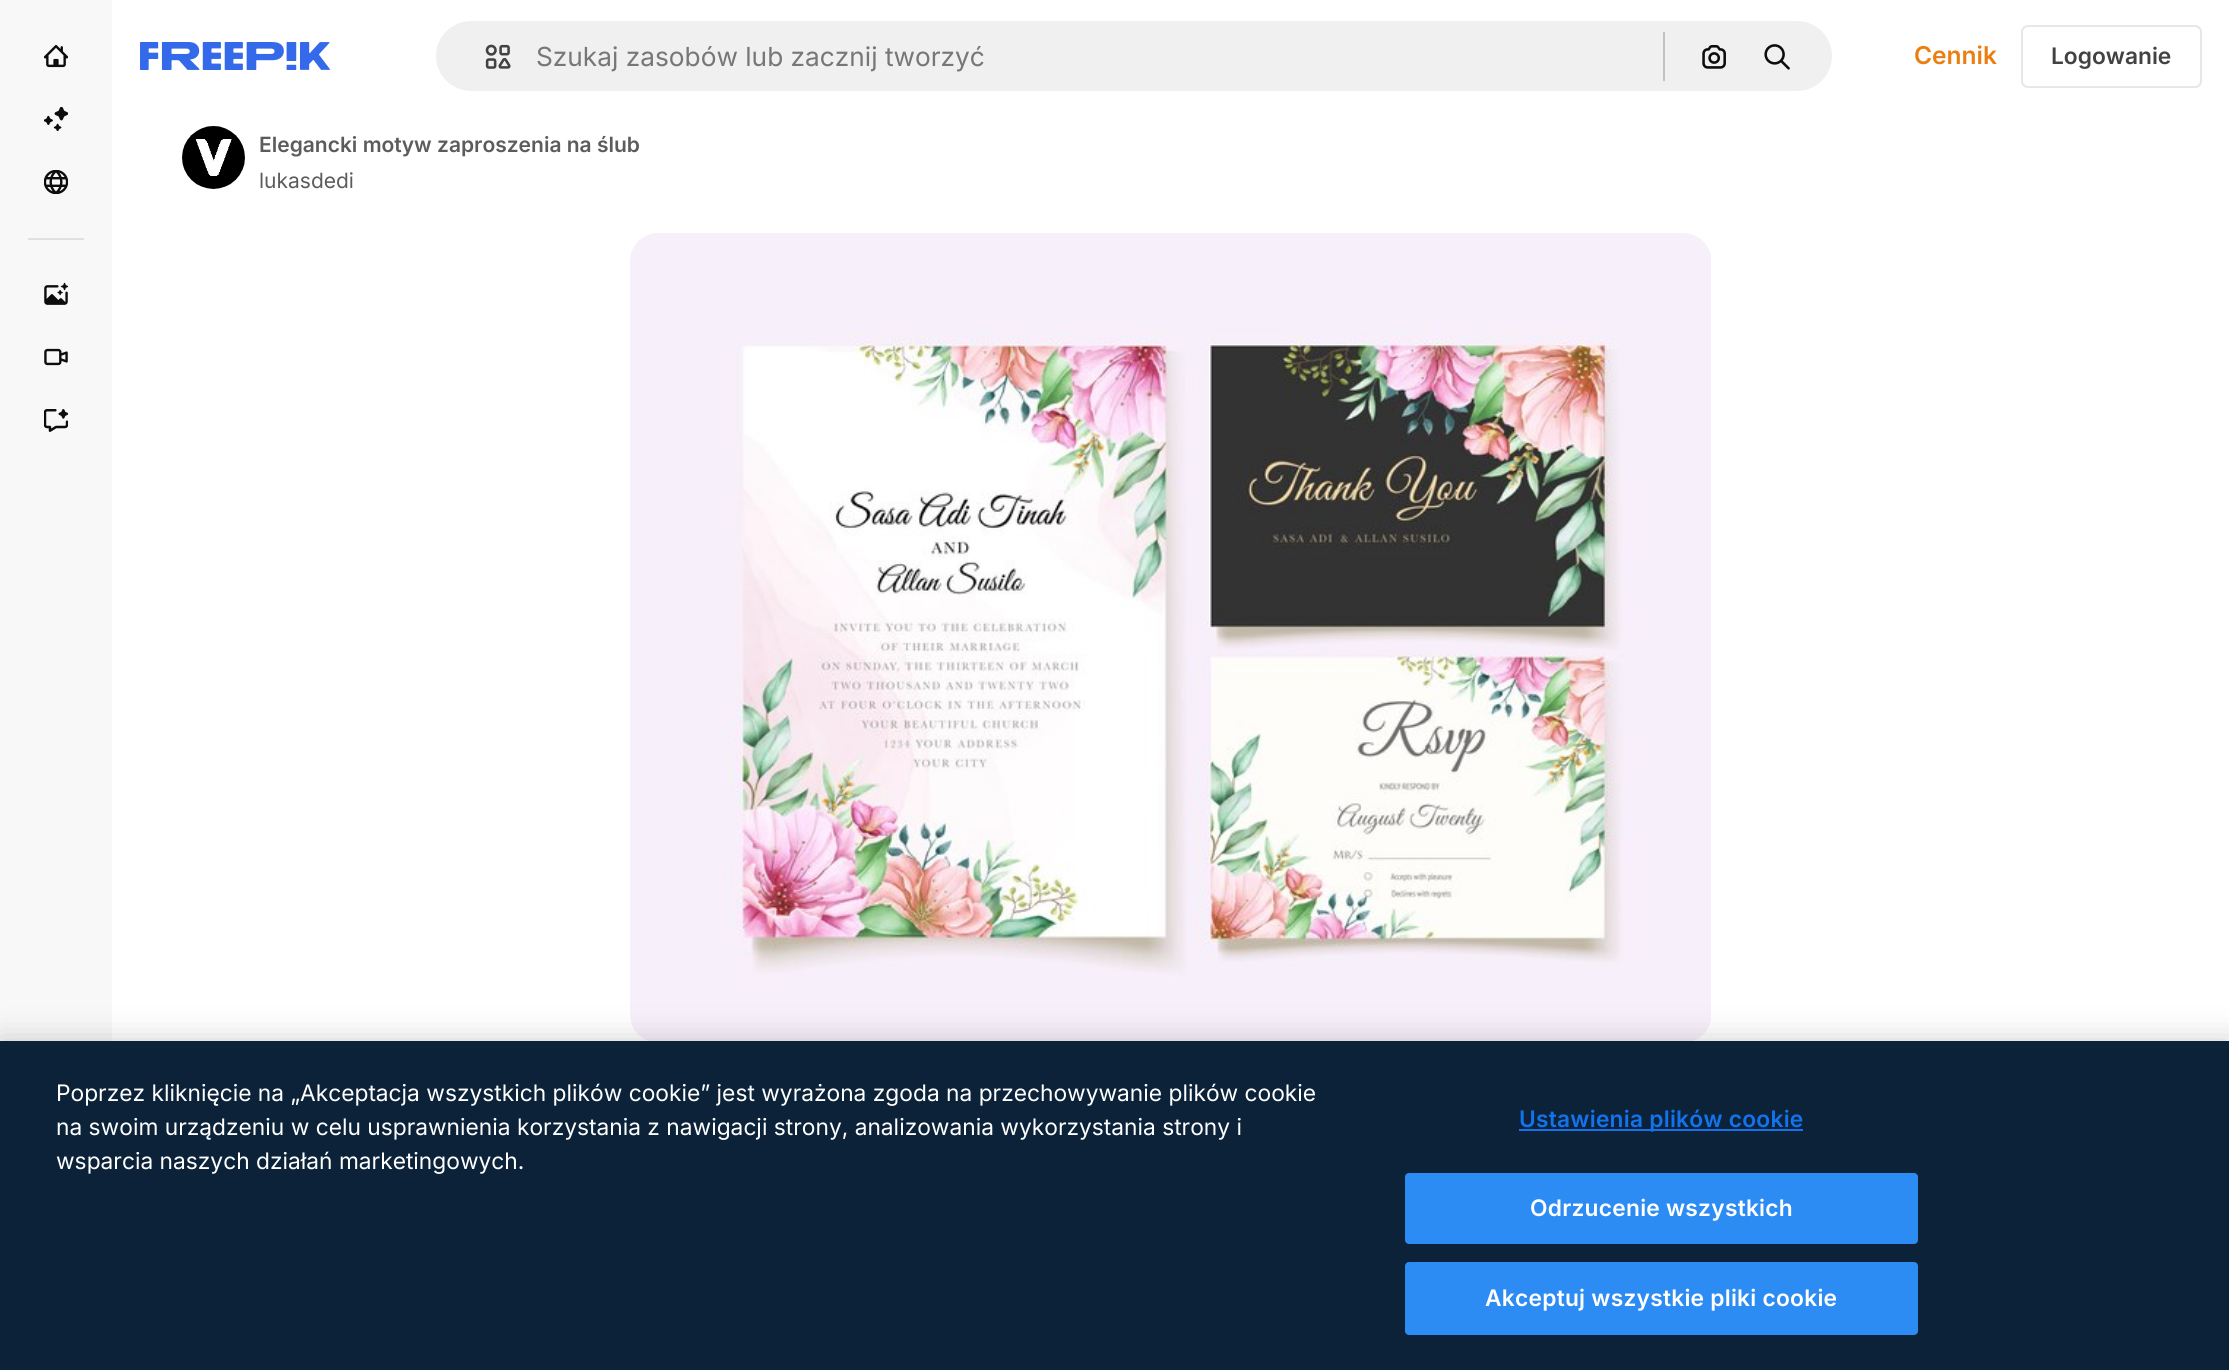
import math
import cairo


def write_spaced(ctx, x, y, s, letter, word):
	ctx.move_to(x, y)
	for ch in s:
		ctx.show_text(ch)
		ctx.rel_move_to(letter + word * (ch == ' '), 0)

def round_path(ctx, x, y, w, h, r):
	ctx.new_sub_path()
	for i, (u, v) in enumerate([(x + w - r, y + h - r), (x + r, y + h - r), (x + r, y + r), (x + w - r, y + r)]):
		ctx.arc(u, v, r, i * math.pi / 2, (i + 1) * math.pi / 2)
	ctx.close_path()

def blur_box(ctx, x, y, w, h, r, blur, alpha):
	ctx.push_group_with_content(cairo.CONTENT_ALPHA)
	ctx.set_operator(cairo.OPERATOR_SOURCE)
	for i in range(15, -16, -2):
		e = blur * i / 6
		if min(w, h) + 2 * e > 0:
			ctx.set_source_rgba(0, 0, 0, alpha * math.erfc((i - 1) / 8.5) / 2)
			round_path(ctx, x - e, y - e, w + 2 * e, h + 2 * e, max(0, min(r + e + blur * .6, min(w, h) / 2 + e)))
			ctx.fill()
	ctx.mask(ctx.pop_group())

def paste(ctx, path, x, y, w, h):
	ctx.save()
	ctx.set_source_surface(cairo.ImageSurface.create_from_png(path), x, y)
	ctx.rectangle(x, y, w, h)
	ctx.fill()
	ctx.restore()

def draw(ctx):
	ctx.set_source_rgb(1, 1, 1)
	ctx.paint()
	ctx.set_source_rgb(0.969, 0.969, 0.969)
	ctx.rectangle(0, 0, 112, 1041)
	ctx.fill()
	paste(ctx, 'media/1.png', 44, 45, 24, 23)
	paste(ctx, 'media/2.png', 44, 107, 24, 24)
	paste(ctx, 'media/3.png', 44, 170, 24, 24)
	ctx.set_source_rgb(0.878, 0.878, 0.878)
	ctx.rectangle(28, 238, 56, 2)
	ctx.fill()
	paste(ctx, 'media/4.png', 44, 282, 24, 23)
	paste(ctx, 'media/5.png', 44, 348, 24, 18)
	paste(ctx, 'media/6.png', 44, 409, 24, 23)
	paste(ctx, 'media/7.png', 140, 42, 190, 28)
	ctx.set_source_rgb(0.941, 0.941, 0.941)
	round_path(ctx, 435, 20, 1398, 72, 36)
	ctx.fill_preserve()
	ctx.set_source_rgb(1, 1, 1)
	ctx.stroke()
	paste(ctx, 'media/8.png', 485, 44, 26, 25)
	ctx.select_font_face('Inter')
	ctx.set_font_size(26.25)
	ctx.set_source_rgb(0.467, 0.467, 0.467)
	ctx.move_to(536, 66)
	ctx.show_text('Szukaj zasobów lub zacznij tworzyć')
	ctx.set_source_rgb(0.765, 0.765, 0.765)
	ctx.rectangle(1663, 32, 2, 49)
	ctx.fill()
	paste(ctx, 'media/9.png', 1702, 45, 24, 24)
	paste(ctx, 'media/10.png', 1764, 44, 26, 26)
	ctx.select_font_face('Inter SemiBold')
	ctx.set_font_size(24.5)
	ctx.set_source_rgb(0.918, 0.494, 0.067)
	ctx.move_to(1914, 64)
	ctx.show_text('Cennik')
	round_path(ctx, 2022, 26, 179, 61, 6)
	ctx.set_source_rgb(0.906, 0.906, 0.906)
	ctx.stroke()
	ctx.set_font_size(22.75)
	ctx.set_source_rgb(0.259, 0.259, 0.259)
	ctx.move_to(2051, 64)
	ctx.show_text('Logowanie')
	paste(ctx, 'media/11.png', 182, 126, 63, 63)
	ctx.set_font_size(21)
	ctx.set_source_rgb(0.361, 0.361, 0.361)
	ctx.move_to(259, 152)
	ctx.show_text('Elegancki motyw zaproszenia na ślub')
	ctx.select_font_face('Inter')
	ctx.move_to(259, 188)
	ctx.show_text('lukasdedi')
	paste(ctx, 'media/12.png', 630, 233, 1081, 808)
	ctx.set_source_rgb(0, 0, 0)
	blur_box(ctx, 0, 1041, 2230, 329, 0, 16, 0.2)
	ctx.set_source_rgb(0.043, 0.133, 0.224)
	ctx.rectangle(0, 1041, 2229, 329)
	ctx.fill()
	ctx.set_font_size(22.75)
	ctx.set_source_rgb(1, 1, 1)
	for x, y, s in [
		(56, 1101, 'Poprzez kliknięcie na „Akceptacja wszystkich plików cookie” jest wyrażona zgoda na przechowywanie plików cookie'),
		(56, 1135, 'na swoim urządzeniu w celu usprawnienia korzystania z nawigacji strony, analizowania wykorzystania strony i'),
		(56, 1169, 'wsparcia naszych działań marketingowych.'),
	]:
		ctx.move_to(x, y)
		ctx.show_text(s)
	ctx.set_source_rgb(0.071, 0.451, 0.922)
	ctx.rectangle(1519, 1129, 284, 2)
	ctx.fill()
	ctx.select_font_face('Inter SemiBold')
	write_spaced(ctx, 1519, 1127, 'Ustawienia plików cookie', 0.25, 0)
	ctx.set_source_rgb(0.173, 0.549, 0.957)
	round_path(ctx, 1406, 1174, 511, 69, 3)
	ctx.fill_preserve()
	ctx.stroke()
	ctx.set_source_rgb(1, 1, 1)
	write_spaced(ctx, 1530, 1216, 'Odrzucenie wszystkich', 0.25, 0)
	ctx.set_source_rgb(0.173, 0.549, 0.957)
	round_path(ctx, 1406, 1263, 511, 71, 3)
	ctx.fill_preserve()
	ctx.stroke()
	ctx.set_source_rgb(1, 1, 1)
	write_spaced(ctx, 1485, 1306, 'Akceptuj wszystkie pliki cookie', 0.25, 0)


surface = cairo.ImageSurface(cairo.FORMAT_RGB24, 2229, 1370)
ctx = cairo.Context(surface)
options = cairo.FontOptions()
options.set_hint_metrics(cairo.HINT_METRICS_OFF)
options.set_hint_style(cairo.HINT_STYLE_NONE)
ctx.set_font_options(options)
ctx.set_miter_limit(4)
draw(ctx)
surface.write_to_png('image.png')
